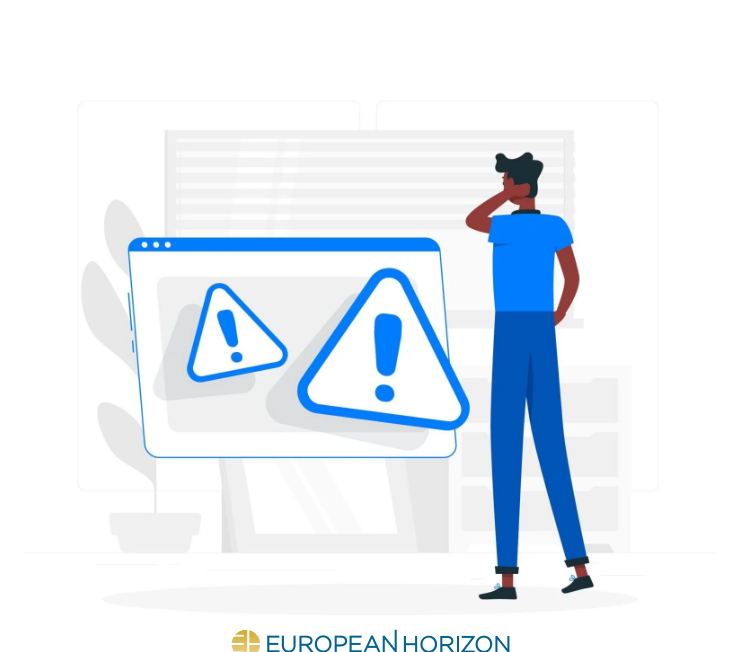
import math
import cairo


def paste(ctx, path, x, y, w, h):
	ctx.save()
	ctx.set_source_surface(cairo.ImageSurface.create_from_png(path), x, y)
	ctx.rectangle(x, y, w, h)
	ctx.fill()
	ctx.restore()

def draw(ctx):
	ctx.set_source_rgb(1, 1, 1)
	ctx.paint()
	paste(ctx, 'media/1.png', 25, 100, 690, 515)
	paste(ctx, 'media/2.png', 231, 629, 279, 23)


surface = cairo.ImageSurface(cairo.FORMAT_RGB24, 739, 652)
ctx = cairo.Context(surface)
options = cairo.FontOptions()
options.set_hint_metrics(cairo.HINT_METRICS_OFF)
options.set_hint_style(cairo.HINT_STYLE_NONE)
ctx.set_font_options(options)
ctx.set_miter_limit(4)
draw(ctx)
surface.write_to_png('image.png')
